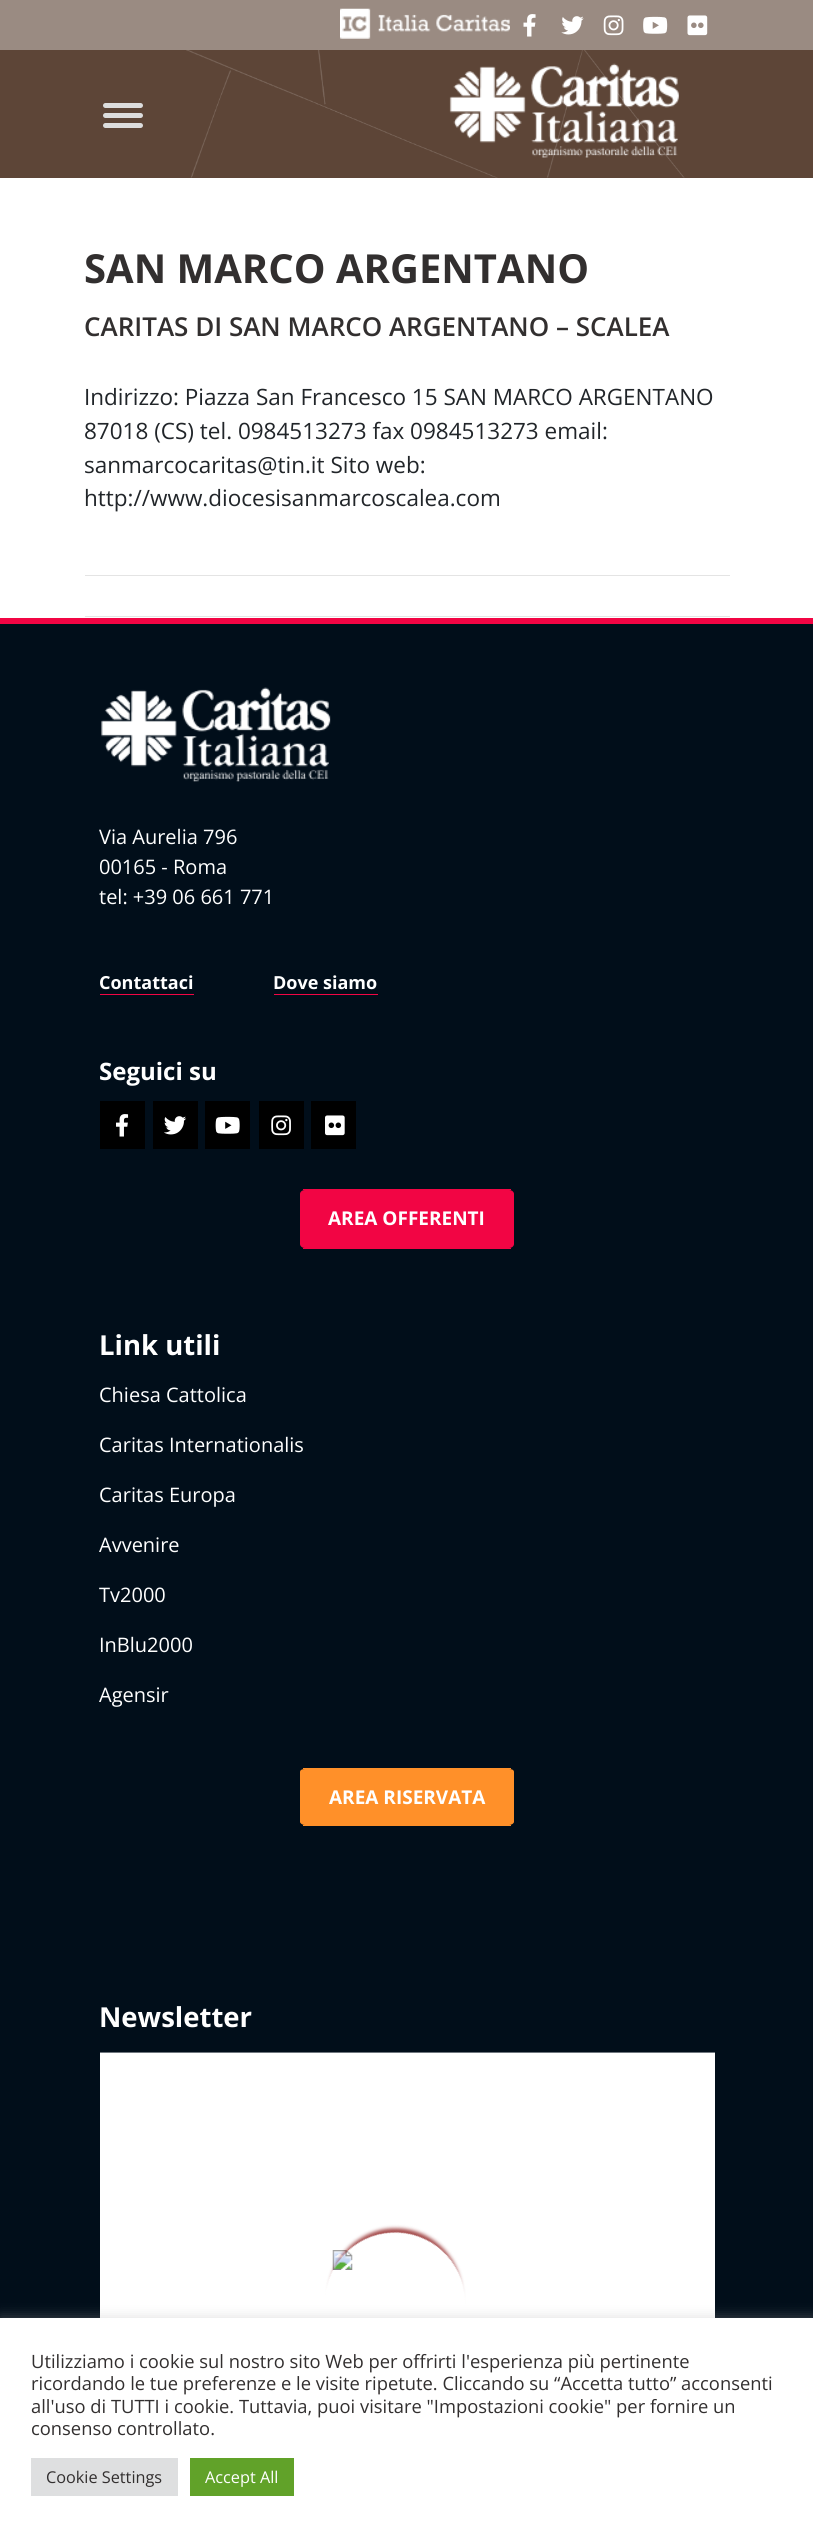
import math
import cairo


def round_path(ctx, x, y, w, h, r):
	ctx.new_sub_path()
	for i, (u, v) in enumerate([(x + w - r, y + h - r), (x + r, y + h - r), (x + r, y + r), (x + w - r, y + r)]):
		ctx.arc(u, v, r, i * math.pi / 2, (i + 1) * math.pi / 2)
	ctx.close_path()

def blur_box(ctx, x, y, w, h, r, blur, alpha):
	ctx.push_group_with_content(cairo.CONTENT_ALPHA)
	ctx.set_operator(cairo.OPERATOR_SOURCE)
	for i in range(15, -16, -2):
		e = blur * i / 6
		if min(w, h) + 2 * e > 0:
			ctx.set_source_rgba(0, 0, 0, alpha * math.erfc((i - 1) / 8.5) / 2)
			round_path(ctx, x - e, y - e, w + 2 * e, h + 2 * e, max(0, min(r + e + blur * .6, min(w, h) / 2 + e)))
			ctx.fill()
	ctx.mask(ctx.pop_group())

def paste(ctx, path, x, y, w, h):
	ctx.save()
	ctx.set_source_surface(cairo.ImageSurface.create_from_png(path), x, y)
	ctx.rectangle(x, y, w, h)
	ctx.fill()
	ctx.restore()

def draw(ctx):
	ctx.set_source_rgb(1, 1, 1)
	ctx.paint()
	ctx.set_source_rgb(0.604, 0.545, 0.51)
	ctx.rectangle(0, 0, 813, 50)
	ctx.fill()
	paste(ctx, 'media/1.png', 340, 8, 170, 31)
	paste(ctx, 'media/2.png', 523, 14, 13, 23)
	paste(ctx, 'media/3.png', 561, 16, 23, 19)
	paste(ctx, 'media/4.png', 603, 15, 21, 21)
	paste(ctx, 'media/5.png', 643, 16, 25, 18)
	paste(ctx, 'media/6.png', 687, 15, 21, 21)
	ctx.set_source_rgb(0.365, 0.271, 0.216)
	ctx.rectangle(0, 50, 813, 128)
	ctx.fill()
	paste(ctx, 'media/7.png', 186, 50, 499, 128)
	ctx.set_source_rgb(0.867, 0.867, 0.867)
	round_path(ctx, 103, 103, 40, 5, 2.5)
	ctx.fill()
	round_path(ctx, 103, 113, 40, 5, 2.5)
	ctx.fill()
	round_path(ctx, 103, 123, 40, 5, 2.5)
	ctx.fill()
	paste(ctx, 'media/8.png', 449, 63, 230, 95)
	ctx.select_font_face('Open Sans', cairo.FONT_SLANT_NORMAL, cairo.FONT_WEIGHT_BOLD)
	ctx.set_font_size(40)
	ctx.set_source_rgb(0.196, 0.184, 0.184)
	ctx.move_to(84, 283)
	ctx.show_text('SAN MARCO ARGENTANO')
	ctx.set_source_rgb(0.894, 0.894, 0.894)
	ctx.rectangle(85, 616, 645, 1)
	ctx.fill()
	ctx.rectangle(85, 575, 645, 1)
	ctx.fill()
	ctx.select_font_face('Open Sans SemiBold')
	ctx.set_font_size(26)
	ctx.set_source_rgb(0.196, 0.184, 0.184)
	ctx.move_to(84, 336)
	ctx.show_text('CARITAS DI SAN MARCO ARGENTANO – SCALEA')
	ctx.select_font_face('Open Sans')
	ctx.set_font_size(22.5)
	ctx.set_source_rgb(0.129, 0.145, 0.161)
	for x, y, s in [
		(84, 405, 'Indirizzo: Piazza San Francesco 15 SAN MARCO ARGENTANO'),
		(84, 439, '87018 (CS) tel. 0984513273 fax 0984513273 email:'),
		(84, 473, 'sanmarcocaritas@tin.it Sito web:'),
		(84, 506, 'http://www.diocesisanmarcoscalea.com'),
	]:
		ctx.move_to(x, y)
		ctx.show_text(s)
	ctx.set_source_rgb(0.004, 0.055, 0.102)
	ctx.rectangle(0, 624, 813, 1694)
	ctx.fill()
	ctx.set_source_rgb(0.949, 0.02, 0.267)
	ctx.rectangle(0, 618, 813, 6)
	ctx.fill()
	paste(ctx, 'media/9.png', 101, 687, 230, 95)
	ctx.set_font_size(20)
	ctx.set_source_rgb(1, 1, 1)
	for x, y, s in [
		(99, 844, 'Via Aurelia 796'),
		(99, 874, '00165 - Roma'),
		(99, 904, 'tel: +39 06 661 771'),
	]:
		ctx.move_to(x, y)
		ctx.show_text(s)
	ctx.select_font_face('Open Sans', cairo.FONT_SLANT_NORMAL, cairo.FONT_WEIGHT_BOLD)
	ctx.set_font_size(18)
	ctx.move_to(99, 989)
	ctx.show_text('Contattaci')
	ctx.set_source_rgb(0.949, 0.02, 0.267)
	ctx.rectangle(100, 994, 94, 1)
	ctx.fill()
	ctx.set_source_rgb(1, 1, 1)
	ctx.move_to(273, 989)
	ctx.show_text('Dove siamo')
	ctx.set_source_rgb(0.949, 0.02, 0.267)
	ctx.rectangle(274, 994, 104, 1)
	ctx.fill()
	ctx.set_font_size(24)
	ctx.set_source_rgb(1, 1, 1)
	ctx.move_to(99, 1080)
	ctx.show_text('Seguici su')
	ctx.set_source_rgb(0, 0, 0)
	ctx.rectangle(100, 1101, 45, 48)
	ctx.fill()
	paste(ctx, 'media/10.png', 116, 1114, 13, 23)
	ctx.rectangle(153, 1101, 45, 48)
	ctx.fill()
	paste(ctx, 'media/11.png', 164, 1116, 23, 19)
	ctx.rectangle(205, 1101, 45, 48)
	ctx.fill()
	paste(ctx, 'media/12.png', 215, 1116, 25, 18)
	ctx.rectangle(259, 1101, 45, 48)
	ctx.fill()
	paste(ctx, 'media/13.png', 271, 1115, 20, 21)
	ctx.rectangle(311, 1101, 45, 48)
	ctx.fill()
	paste(ctx, 'media/14.png', 325, 1115, 20, 21)
	ctx.set_source_rgb(0.949, 0.02, 0.267)
	ctx.new_path()
	ctx.move_to(305, 1190)
	ctx.line_to(509, 1190)
	ctx.curve_to(512, 1190, 514, 1192, 514, 1194)
	ctx.line_to(514, 1244)
	ctx.curve_to(514, 1246, 512, 1248, 509, 1248)
	ctx.line_to(305, 1248)
	ctx.curve_to(302, 1248, 300, 1246, 300, 1244)
	ctx.line_to(300, 1194)
	ctx.curve_to(300, 1192, 302, 1190, 305, 1190)
	ctx.close_path()
	ctx.fill()
	ctx.rectangle(303, 1189, 208, 1)
	ctx.fill()
	ctx.rectangle(303, 1248, 208, 1)
	ctx.fill()
	ctx.set_font_size(19)
	ctx.set_source_rgb(1, 1, 1)
	ctx.move_to(328, 1225)
	ctx.show_text('AREA OFFERENTI')
	ctx.set_font_size(27.5)
	ctx.move_to(99, 1355)
	ctx.show_text('Link utili')
	ctx.select_font_face('Open Sans')
	ctx.set_font_size(20)
	for x, y, s in [
		(99, 1402, 'Chiesa Cattolica'),
		(99, 1452, 'Caritas Internationalis'),
		(99, 1502, 'Caritas Europa'),
		(99, 1552, 'Avvenire'),
		(99, 1602, 'Tv2000'),
		(99, 1652, 'InBlu2000'),
		(99, 1702, 'Agensir'),
	]:
		ctx.move_to(x, y)
		ctx.show_text(s)
	ctx.set_source_rgb(1, 0.565, 0.161)
	ctx.new_path()
	ctx.move_to(305, 1769)
	ctx.line_to(509, 1769)
	ctx.curve_to(512, 1769, 514, 1770, 514, 1772)
	ctx.line_to(514, 1822)
	ctx.curve_to(514, 1823, 512, 1825, 509, 1825)
	ctx.line_to(305, 1825)
	ctx.curve_to(302, 1825, 300, 1823, 300, 1822)
	ctx.line_to(300, 1772)
	ctx.curve_to(300, 1770, 302, 1769, 305, 1769)
	ctx.close_path()
	ctx.fill()
	ctx.rectangle(303, 1768, 208, 1)
	ctx.fill()
	ctx.rectangle(303, 1825, 208, 1)
	ctx.fill()
	ctx.select_font_face('Open Sans', cairo.FONT_SLANT_NORMAL, cairo.FONT_WEIGHT_BOLD)
	ctx.set_font_size(19)
	ctx.set_source_rgb(1, 1, 1)
	ctx.move_to(329, 1804)
	ctx.show_text('AREA RISERVATA')
	ctx.set_font_size(27.5)
	ctx.move_to(99, 2027)
	ctx.show_text('Newsletter')
	paste(ctx, 'media/15.png', 100, 2052, 615, 266)
	ctx.set_source_rgb(0.675, 0.671, 0.671)
	blur_box(ctx, 0, 2316, 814, 217, 0, 6, 0.3)
	ctx.set_source_rgb(1, 1, 1)
	ctx.rectangle(0, 2318, 813, 215)
	ctx.fill()
	ctx.select_font_face('Open Sans')
	ctx.set_font_size(18.35)
	ctx.set_source_rgb(0.196, 0.184, 0.184)
	for x, y, s in [
		(31, 2368, 'Utilizziamo i cookie sul nostro sito Web per offrirti l\'esperienza più pertinente'),
		(31, 2390, 'ricordando le tue preferenze e le visite ripetute. Cliccando su “Accetta tutto” acconsenti'),
		(31, 2413, 'all\'uso di TUTTI i cookie. Tuttavia, puoi visitare "Impostazioni cookie" per fornire un'),
		(31, 2435, 'consenso controllato.'),
	]:
		ctx.move_to(x, y)
		ctx.show_text(s)
	ctx.set_source_rgb(0.871, 0.875, 0.878)
	ctx.rectangle(31, 2458, 147, 38)
	ctx.fill()
	ctx.set_font_size(16.25)
	ctx.set_source_rgb(0.196, 0.184, 0.184)
	ctx.move_to(46, 2483)
	ctx.show_text('Cookie Settings')
	ctx.set_source_rgb(0.38, 0.635, 0.161)
	ctx.rectangle(190, 2458, 104, 38)
	ctx.fill()
	ctx.set_source_rgb(1, 1, 1)
	ctx.move_to(205, 2483)
	ctx.show_text('Accept All')


surface = cairo.ImageSurface(cairo.FORMAT_RGB24, 813, 2533)
ctx = cairo.Context(surface)
options = cairo.FontOptions()
options.set_hint_metrics(cairo.HINT_METRICS_OFF)
options.set_hint_style(cairo.HINT_STYLE_NONE)
ctx.set_font_options(options)
ctx.set_miter_limit(4)
draw(ctx)
surface.write_to_png('image.png')
